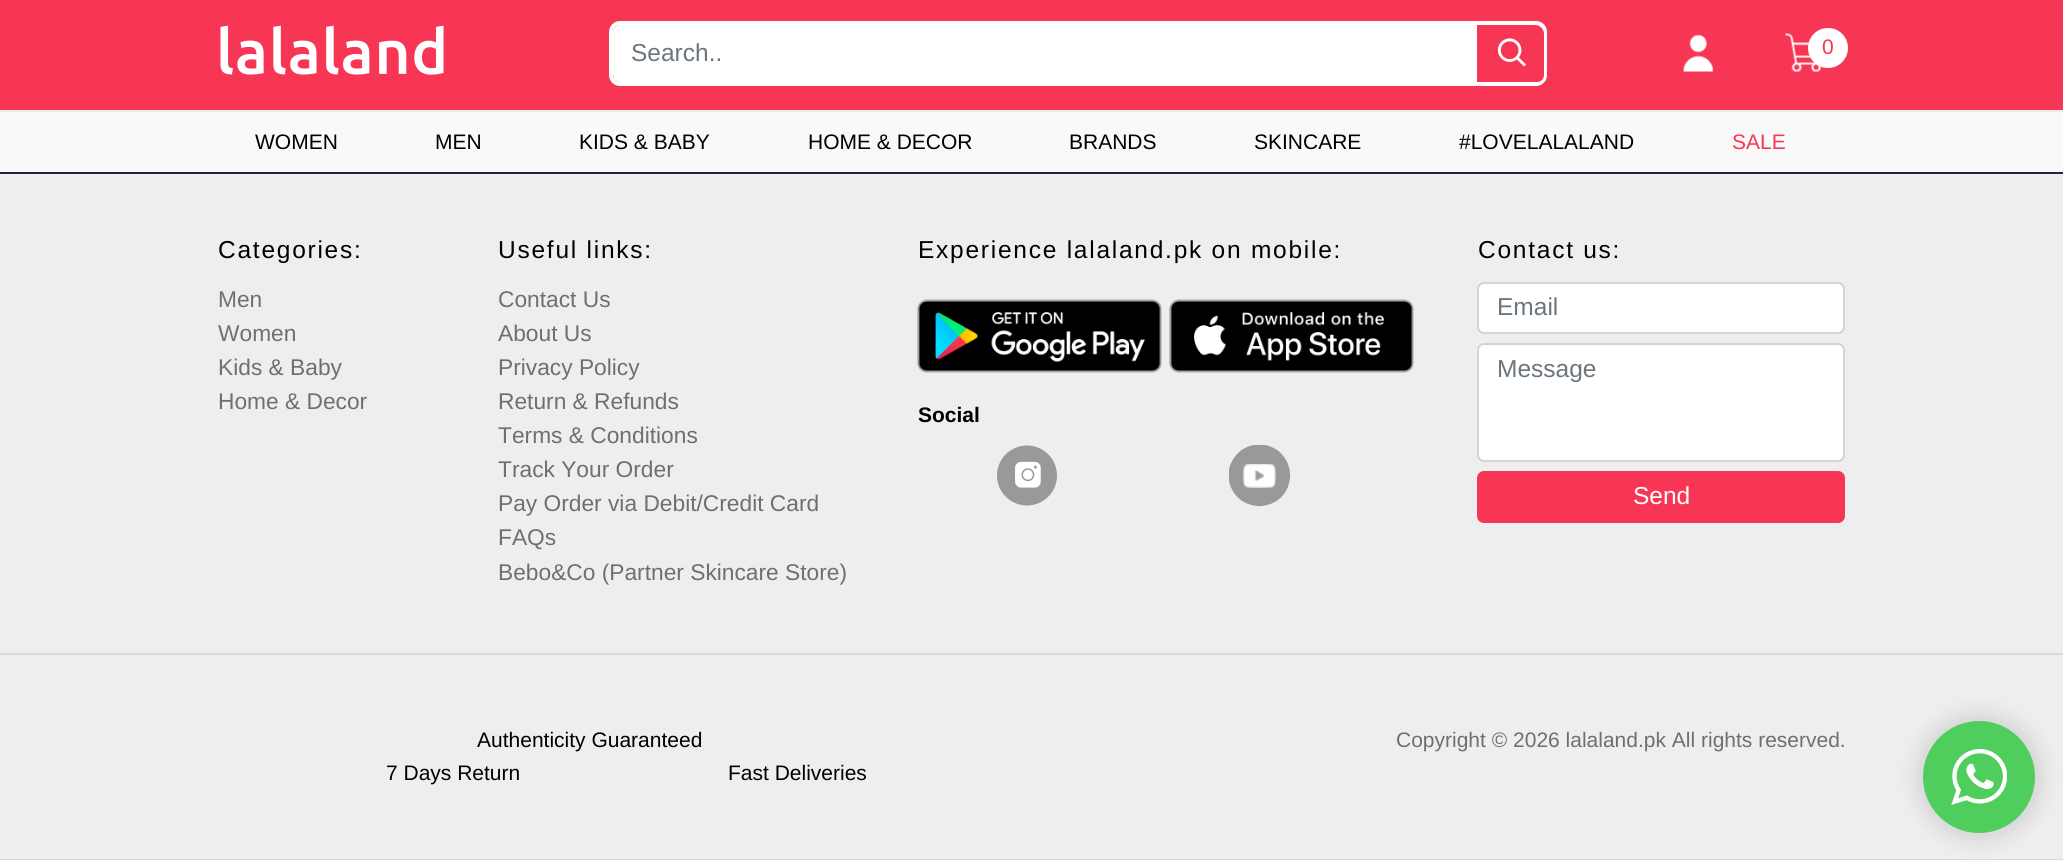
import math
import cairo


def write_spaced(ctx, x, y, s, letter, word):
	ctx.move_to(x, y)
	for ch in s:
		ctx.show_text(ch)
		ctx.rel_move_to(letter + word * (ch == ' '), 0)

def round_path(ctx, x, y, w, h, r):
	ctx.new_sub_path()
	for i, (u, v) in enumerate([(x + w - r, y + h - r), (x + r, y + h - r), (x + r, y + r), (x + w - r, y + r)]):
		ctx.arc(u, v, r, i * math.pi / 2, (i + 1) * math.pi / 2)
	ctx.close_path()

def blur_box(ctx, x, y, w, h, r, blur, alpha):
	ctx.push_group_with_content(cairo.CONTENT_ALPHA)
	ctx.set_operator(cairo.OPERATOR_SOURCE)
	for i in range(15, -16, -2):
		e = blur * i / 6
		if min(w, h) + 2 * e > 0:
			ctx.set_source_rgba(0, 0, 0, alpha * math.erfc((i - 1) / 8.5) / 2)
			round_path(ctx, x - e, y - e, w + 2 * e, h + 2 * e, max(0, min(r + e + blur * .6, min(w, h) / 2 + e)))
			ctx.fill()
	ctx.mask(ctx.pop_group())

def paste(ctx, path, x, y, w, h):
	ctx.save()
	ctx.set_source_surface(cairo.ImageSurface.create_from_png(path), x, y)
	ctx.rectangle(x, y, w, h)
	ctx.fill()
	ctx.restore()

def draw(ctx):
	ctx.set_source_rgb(0.933, 0.933, 0.933)
	ctx.paint()
	ctx.set_source_rgb(0.965, 0.212, 0.333)
	ctx.rectangle(0, 0, 2063, 110)
	ctx.fill()
	paste(ctx, 'media/1.png', 220, 25, 224, 50)
	round_path(ctx, 611, 23, 934, 61, 9)
	ctx.set_source_rgb(1, 1, 1)
	ctx.set_line_width(4)
	ctx.stroke()
	ctx.save()
	round_path(ctx, 613, 25, 931, 57, 7)
	ctx.clip()
	round_path(ctx, 613, 25, 931, 61, 5)
	ctx.fill()
	ctx.restore()
	ctx.select_font_face('Liberation Sans')
	ctx.set_font_size(24.5)
	ctx.set_source_rgb(0.424, 0.459, 0.49)
	ctx.move_to(631, 61)
	ctx.show_text('Search..')
	ctx.save()
	round_path(ctx, 613, 25, 931, 57, 7)
	ctx.clip()
	ctx.set_source_rgb(0.965, 0.212, 0.333)
	ctx.new_path()
	ctx.move_to(1477, 25)
	ctx.line_to(1535, 25)
	ctx.curve_to(1540, 25, 1544, 29, 1544, 34)
	ctx.line_to(1544, 75)
	ctx.curve_to(1544, 80, 1540, 84, 1535, 84)
	ctx.line_to(1477, 84)
	ctx.close_path()
	ctx.fill()
	ctx.restore()
	paste(ctx, 'media/2.png', 1497, 38, 29, 29)
	paste(ctx, 'media/3.png', 1683, 34, 31, 38)
	paste(ctx, 'media/4.png', 1784, 33, 37, 39)
	ctx.set_source_rgb(1, 1, 1)
	ctx.arc(1828, 48, 20, 0, 2 * math.pi)
	ctx.fill()
	ctx.set_font_size(21)
	ctx.set_source_rgb(0.965, 0.212, 0.333)
	write_spaced(ctx, 1822, 54, '0', 1.75, 0)
	ctx.set_source_rgb(0.973, 0.973, 0.973)
	ctx.rectangle(0, 112, 2063, 60)
	ctx.fill()
	ctx.set_source_rgb(0.11, 0.157, 0.255)
	ctx.rectangle(0, 172, 2063, 2)
	ctx.fill()
	ctx.set_source_rgb(0, 0, 0)
	for x, y, s in [
		(255, 149, 'WOMEN'),
		(435, 149, 'MEN'),
		(579, 149, 'KIDS & BABY'),
		(808, 149, 'HOME & DECOR'),
		(1069, 149, 'BRANDS'),
		(1254, 149, 'SKINCARE'),
		(1459, 149, '#LOVELALALAND'),
	]:
		ctx.move_to(x, y)
		ctx.show_text(s)
	ctx.set_source_rgb(0.965, 0.212, 0.333)
	ctx.move_to(1732, 149)
	ctx.show_text('SALE')
	ctx.set_font_size(24.5)
	ctx.set_source_rgb(0, 0, 0)
	write_spaced(ctx, 218, 258, 'Categories:', 1.75, 0)
	ctx.set_font_size(22.75)
	ctx.set_source_rgb(0.447, 0.431, 0.431)
	for x, y, s in [
		(218, 307, 'Men'),
		(218, 341, 'Women'),
		(218, 375, 'Kids & Baby'),
		(218, 409, 'Home & Decor'),
	]:
		ctx.move_to(x, y)
		ctx.show_text(s)
	ctx.set_font_size(24.5)
	ctx.set_source_rgb(0, 0, 0)
	write_spaced(ctx, 498, 258, 'Useful links:', 1.75, 0)
	ctx.set_font_size(22.75)
	ctx.set_source_rgb(0.447, 0.431, 0.431)
	for x, y, s in [
		(498, 307, 'Contact Us'),
		(498, 341, 'About Us'),
		(498, 375, 'Privacy Policy'),
		(498, 409, 'Return & Refunds'),
		(498, 443, 'Terms & Conditions'),
		(498, 477, 'Track Your Order'),
		(498, 511, 'Pay Order via Debit/Credit Card'),
		(498, 545, 'FAQs'),
		(498, 580, 'Bebo&Co (Partner Skincare Store)'),
	]:
		ctx.move_to(x, y)
		ctx.show_text(s)
	ctx.set_font_size(24.5)
	ctx.set_source_rgb(0, 0, 0)
	write_spaced(ctx, 918, 258, 'Experience lalaland.pk on mobile:', 1.75, 0)
	paste(ctx, 'media/5.png', 917, 299, 245, 74)
	paste(ctx, 'media/6.png', 1169, 299, 245, 74)
	ctx.select_font_face('Liberation Sans', cairo.FONT_SLANT_NORMAL, cairo.FONT_WEIGHT_BOLD)
	ctx.set_font_size(21)
	ctx.move_to(918, 422)
	ctx.show_text('Social')
	paste(ctx, 'media/7.png', 997, 445, 60, 61)
	paste(ctx, 'media/8.png', 1229, 445, 62, 62)
	ctx.select_font_face('Liberation Sans')
	ctx.set_font_size(24.5)
	write_spaced(ctx, 1478, 258, 'Contact us:', 1.75, 0)
	ctx.set_source_rgb(1, 1, 1)
	round_path(ctx, 1478, 283, 366, 50, 6)
	ctx.fill_preserve()
	ctx.set_source_rgb(0.808, 0.831, 0.855)
	ctx.set_line_width(2)
	ctx.stroke()
	ctx.set_source_rgb(0.424, 0.459, 0.49)
	ctx.move_to(1497, 315)
	ctx.show_text('Email')
	ctx.set_source_rgb(1, 1, 1)
	round_path(ctx, 1478, 344, 366, 117, 6)
	ctx.fill_preserve()
	ctx.set_source_rgb(0.808, 0.831, 0.855)
	ctx.stroke()
	ctx.set_source_rgb(0.424, 0.459, 0.49)
	ctx.move_to(1497, 377)
	ctx.show_text('Message')
	ctx.set_source_rgb(0.965, 0.212, 0.333)
	round_path(ctx, 1478, 472, 366, 50, 6)
	ctx.fill_preserve()
	ctx.stroke()
	ctx.set_source_rgb(1, 1, 1)
	ctx.move_to(1633, 504)
	ctx.show_text('Send')
	ctx.set_source_rgb(0.847, 0.851, 0.859)
	ctx.rectangle(0, 653, 2063, 2)
	ctx.fill()
	ctx.rectangle(0, 859, 2063, 1)
	ctx.fill()
	ctx.set_font_size(21)
	ctx.set_source_rgb(0, 0, 0)
	for x, y, s in [
		(477, 747, 'Authenticity Guaranteed'),
		(386, 780, '7 Days Return'),
		(728, 780, 'Fast Deliveries'),
	]:
		ctx.move_to(x, y)
		ctx.show_text(s)
	ctx.set_source_rgb(0.447, 0.431, 0.431)
	ctx.move_to(1396, 747)
	ctx.show_text('Copyright © 2026 lalaland.pk All rights reserved.')
	ctx.set_source_rgb(0, 0, 0)
	blur_box(ctx, 1915, 712, 129, 130, 64.5, 9, 0.1)
	ctx.set_source_rgb(0.31, 0.808, 0.365)
	ctx.arc(1979, 777, 56, 0, 2 * math.pi)
	ctx.fill()
	paste(ctx, 'media/9.png', 1951, 749, 56, 56)


surface = cairo.ImageSurface(cairo.FORMAT_RGB24, 2063, 860)
ctx = cairo.Context(surface)
options = cairo.FontOptions()
options.set_hint_metrics(cairo.HINT_METRICS_OFF)
options.set_hint_style(cairo.HINT_STYLE_NONE)
ctx.set_font_options(options)
ctx.set_miter_limit(4)
draw(ctx)
surface.write_to_png('image.png')
